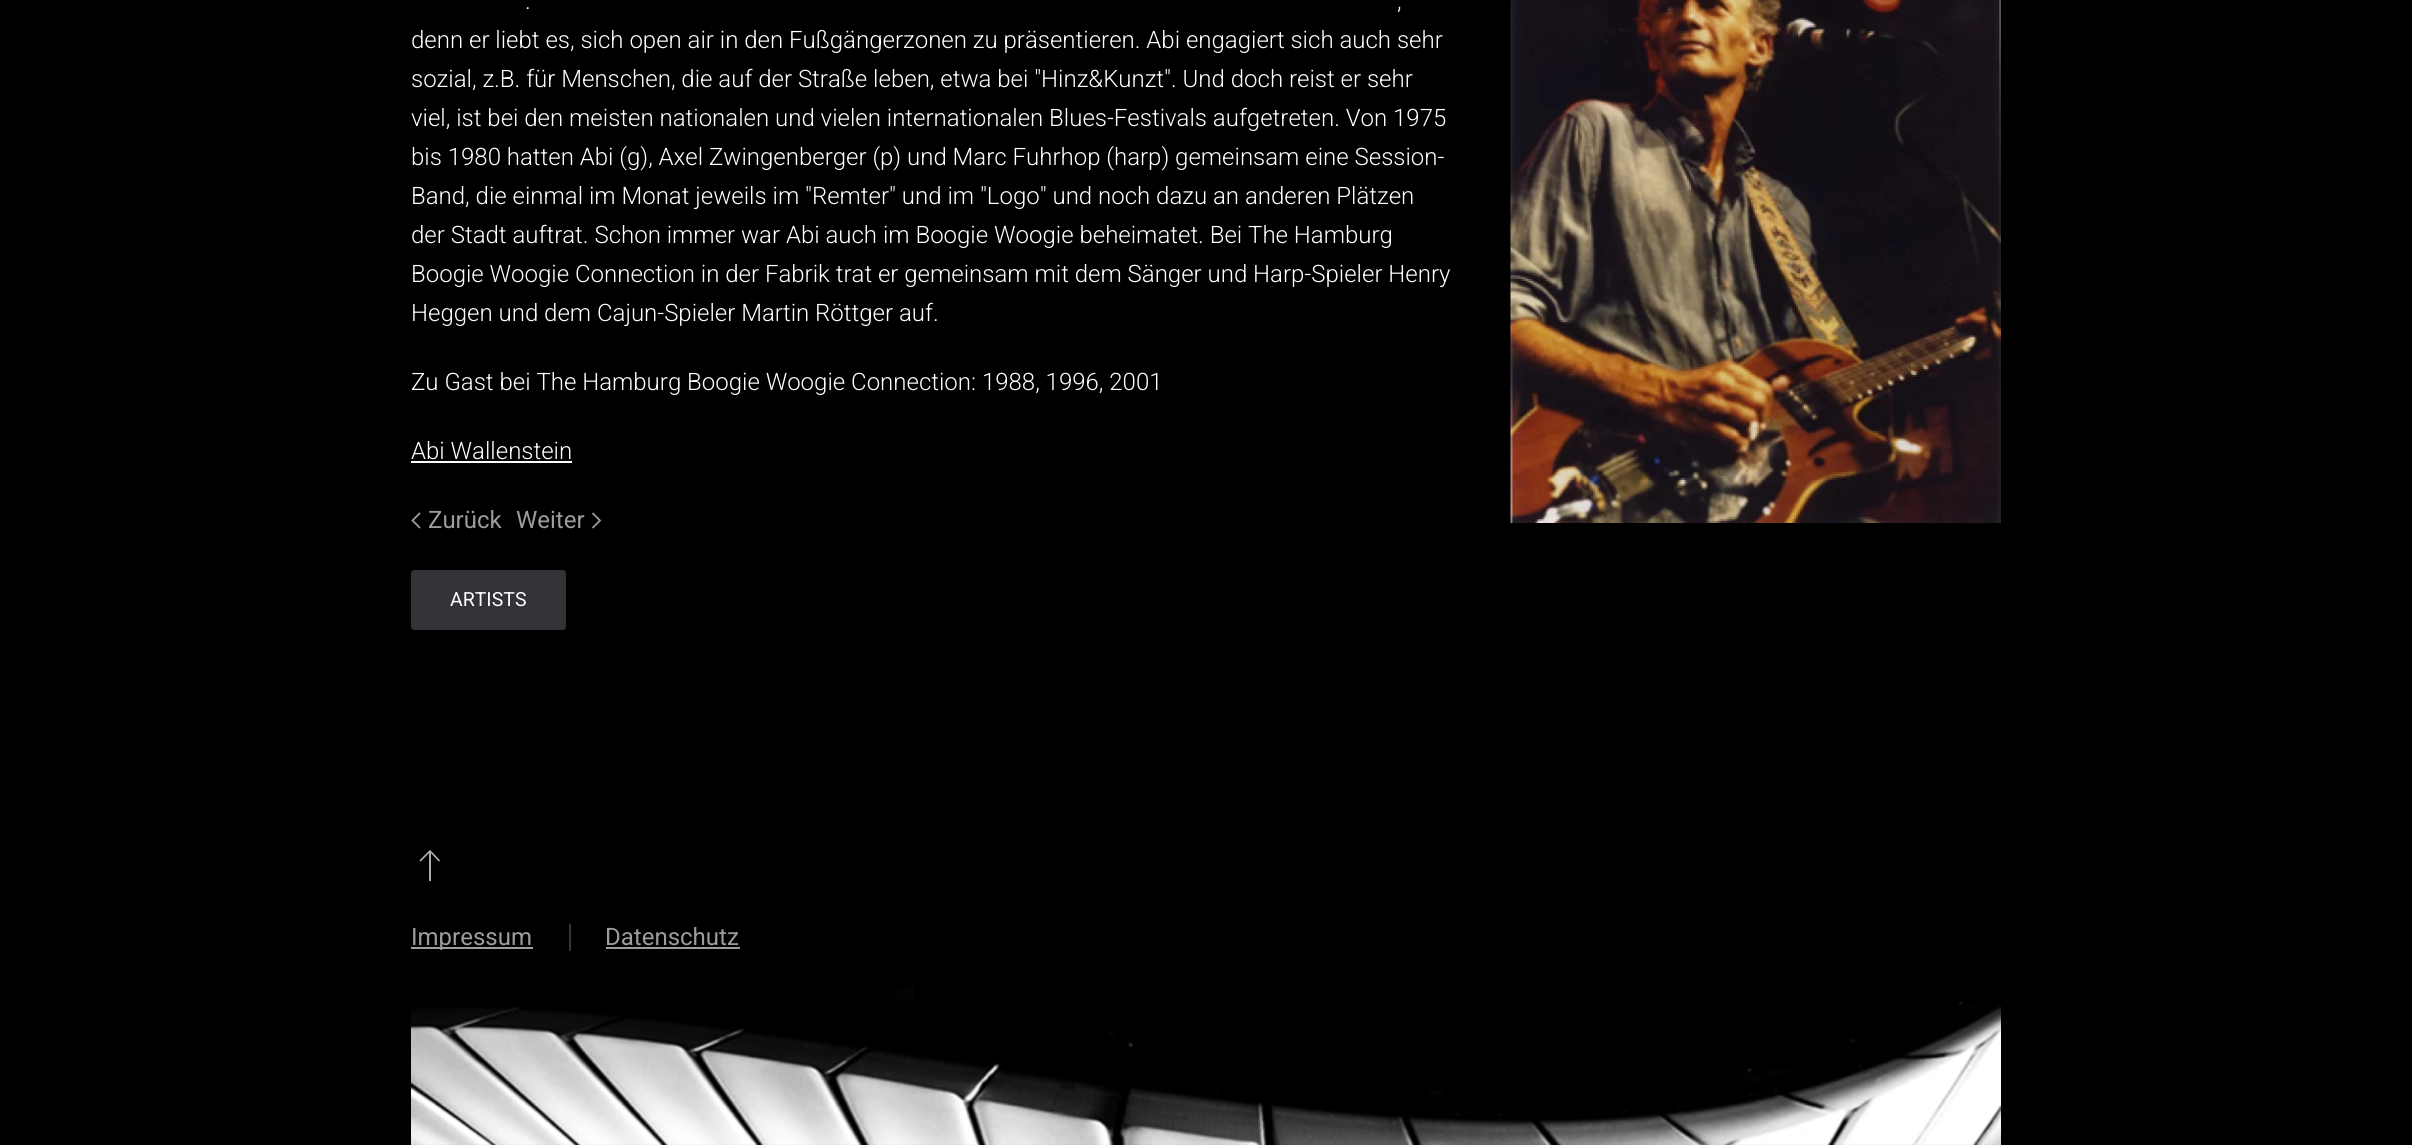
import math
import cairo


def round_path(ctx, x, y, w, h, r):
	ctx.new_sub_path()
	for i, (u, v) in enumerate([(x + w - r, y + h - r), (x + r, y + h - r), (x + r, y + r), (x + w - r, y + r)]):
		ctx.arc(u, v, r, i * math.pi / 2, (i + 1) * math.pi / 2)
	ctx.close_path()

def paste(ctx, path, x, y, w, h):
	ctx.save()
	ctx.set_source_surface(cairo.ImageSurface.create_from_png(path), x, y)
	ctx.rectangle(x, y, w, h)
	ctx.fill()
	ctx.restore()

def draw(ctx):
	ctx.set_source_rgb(0, 0, 0)
	ctx.paint()
	ctx.select_font_face('Roboto Light')
	ctx.set_font_size(24)
	ctx.set_source_rgb(1, 1, 1)
	for x, y, s in [
		(525, 9, '.'),
		(1397, 9, ','),
		(411, 48, 'denn er liebt es, sich open air in den Fußgängerzonen zu präsentieren. Abi engagiert sich auch sehr'),
		(411, 87, 'sozial, z.B. für Menschen, die auf der Straße leben, etwa bei "Hinz&Kunzt". Und doch reist er sehr'),
		(411, 126, 'viel, ist bei den meisten nationalen und vielen internationalen Blues-Festivals aufgetreten. Von 1975'),
		(411, 165, 'bis 1980 hatten Abi (g), Axel Zwingenberger (p) und Marc Fuhrhop (harp) gemeinsam eine Session-'),
		(411, 204, 'Band, die einmal im Monat jeweils im "Remter" und im "Logo" und noch dazu an anderen Plätzen'),
		(411, 243, 'der Stadt auftrat. Schon immer war Abi auch im Boogie Woogie beheimatet. Bei The Hamburg'),
		(411, 282, 'Boogie Woogie Connection in der Fabrik trat er gemeinsam mit dem Sänger und Harp-Spieler Henry'),
		(411, 321, 'Heggen und dem Cajun-Spieler Martin Röttger auf.'),
		(411, 390, 'Zu Gast bei The Hamburg Boogie Woogie Connection: 1988, 1996, 2001'),
		(411, 459, 'Abi Wallenstein'),
	]:
		ctx.move_to(x, y)
		ctx.show_text(s)
	ctx.rectangle(411, 461, 161, 2)
	ctx.fill()
	ctx.new_path()
	ctx.move_to(420, 513)
	ctx.line_to(412.5, 520.5)
	ctx.line_to(420, 528)
	ctx.set_source_rgb(0.612, 0.612, 0.627)
	ctx.set_line_width(1.8)
	ctx.stroke()
	ctx.select_font_face('Roboto')
	ctx.move_to(428, 528)
	ctx.show_text('Zurück')
	ctx.move_to(516, 528)
	ctx.show_text('Weiter')
	ctx.new_path()
	ctx.move_to(592.5, 513)
	ctx.line_to(600, 520.5)
	ctx.line_to(592.5, 528)
	ctx.stroke()
	ctx.set_source_rgb(0.196, 0.2, 0.216)
	round_path(ctx, 411, 570, 155, 60, 3)
	ctx.fill()
	ctx.set_font_size(19.5)
	ctx.set_source_rgb(1, 1, 1)
	ctx.move_to(450, 606)
	ctx.show_text('ARTISTS')
	paste(ctx, 'media/1.png', 1510, 0, 491, 523)
	ctx.new_path()
	ctx.move_to(420, 861)
	ctx.line_to(430, 851)
	ctx.line_to(439.5, 861)
	ctx.set_source_rgb(0.667, 0.667, 0.667)
	ctx.set_line_width(1.7)
	ctx.stroke()
	ctx.rectangle(429, 852, 2, 29)
	ctx.fill()
	ctx.set_source_rgb(0.612, 0.612, 0.627)
	ctx.rectangle(411, 947, 122, 2)
	ctx.fill()
	ctx.set_font_size(24)
	ctx.move_to(411, 945)
	ctx.show_text('Impressum')
	ctx.set_source_rgb(0.208, 0.208, 0.231)
	ctx.rectangle(569, 924, 2, 27)
	ctx.fill()
	ctx.set_source_rgb(0.612, 0.612, 0.627)
	ctx.move_to(605, 945)
	ctx.show_text('Datenschutz')
	ctx.rectangle(606, 947, 134, 2)
	ctx.fill()
	paste(ctx, 'media/2.png', 411, 987, 1590, 158)


surface = cairo.ImageSurface(cairo.FORMAT_RGB24, 2412, 1145)
ctx = cairo.Context(surface)
options = cairo.FontOptions()
options.set_hint_metrics(cairo.HINT_METRICS_OFF)
options.set_hint_style(cairo.HINT_STYLE_NONE)
ctx.set_font_options(options)
ctx.set_miter_limit(4)
draw(ctx)
surface.write_to_png('image.png')
